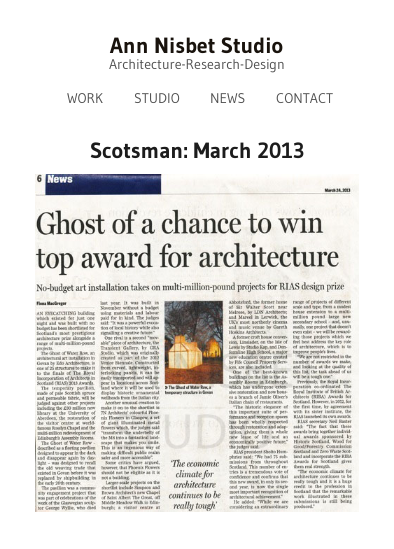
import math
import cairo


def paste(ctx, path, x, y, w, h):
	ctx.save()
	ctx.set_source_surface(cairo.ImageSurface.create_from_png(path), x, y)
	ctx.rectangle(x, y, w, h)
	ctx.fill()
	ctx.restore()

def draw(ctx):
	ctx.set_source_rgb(1, 1, 1)
	ctx.paint()
	ctx.select_font_face('Gudea', cairo.FONT_SLANT_NORMAL, cairo.FONT_WEIGHT_BOLD)
	ctx.set_font_size(22)
	ctx.set_source_rgb(0.098, 0.075, 0.051)
	ctx.move_to(110, 53)
	ctx.show_text('Ann Nisbet Studio')
	ctx.select_font_face('Gudea')
	ctx.set_font_size(14)
	ctx.set_source_rgb(0.314, 0.314, 0.314)
	for x, y, s in [
		(109, 69, 'Architecture-Research-Design'),
		(67, 103, 'WORK'),
		(134, 103, 'STUDIO'),
		(210, 103, 'NEWS'),
		(276, 103, 'CONTACT'),
	]:
		ctx.move_to(x, y)
		ctx.show_text(s)
	ctx.select_font_face('Gudea', cairo.FONT_SLANT_NORMAL, cairo.FONT_WEIGHT_BOLD)
	ctx.set_font_size(22)
	ctx.set_source_rgb(0.11, 0.11, 0.11)
	ctx.move_to(90, 158)
	ctx.show_text('Scotsman: March 2013')
	paste(ctx, 'media/1.png', 35, 174, 324, 338)


surface = cairo.ImageSurface(cairo.FORMAT_RGB24, 394, 549)
ctx = cairo.Context(surface)
options = cairo.FontOptions()
options.set_hint_metrics(cairo.HINT_METRICS_OFF)
options.set_hint_style(cairo.HINT_STYLE_NONE)
ctx.set_font_options(options)
ctx.set_miter_limit(4)
draw(ctx)
surface.write_to_png('image.png')
